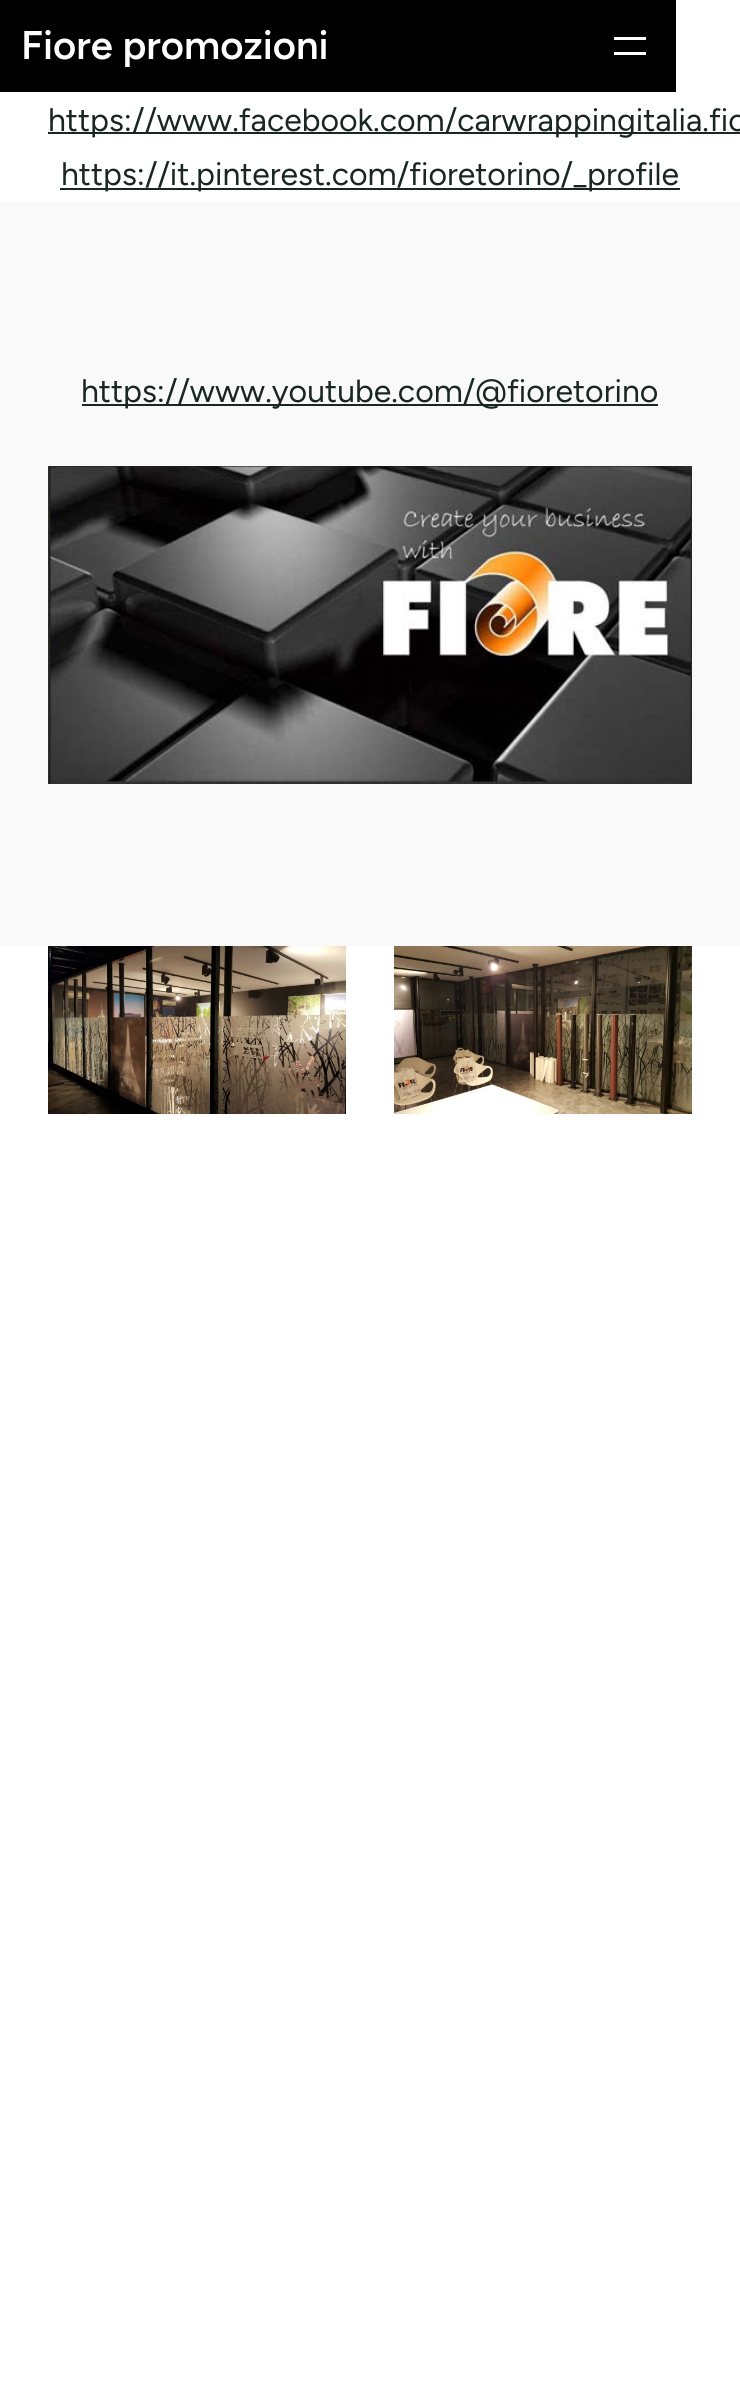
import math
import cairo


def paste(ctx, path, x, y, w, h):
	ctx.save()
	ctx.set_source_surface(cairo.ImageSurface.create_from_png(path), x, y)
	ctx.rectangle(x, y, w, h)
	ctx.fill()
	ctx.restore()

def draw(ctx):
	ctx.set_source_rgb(1, 1, 1)
	ctx.paint()
	ctx.set_source_rgb(0, 0, 0)
	ctx.rectangle(0, 0, 676, 92)
	ctx.fill()
	ctx.select_font_face('Figtree SemiBold')
	ctx.set_font_size(40)
	ctx.set_source_rgb(1, 1, 1)
	ctx.move_to(21, 59)
	ctx.show_text('Fiore promozioni')
	ctx.rectangle(614, 37, 32, 3)
	ctx.rectangle(614, 52, 32, 3)
	ctx.fill()
	ctx.set_source_rgb(0.098, 0.149, 0.133)
	ctx.rectangle(48, 132, 692, 2)
	ctx.fill()
	ctx.select_font_face('Figtree')
	ctx.set_font_size(32)
	ctx.move_to(48, 131)
	ctx.show_text('https://www.facebook.com/carwrappingitalia.fio')
	ctx.rectangle(60, 188, 620, 2)
	ctx.fill()
	ctx.move_to(61, 185)
	ctx.show_text('https://it.pinterest.com/fioretorino/_profile')
	ctx.set_source_rgb(0.976, 0.973, 0.973)
	ctx.rectangle(0, 202, 740, 744)
	ctx.fill()
	ctx.set_source_rgb(0.098, 0.149, 0.133)
	ctx.rectangle(82, 404, 576, 2)
	ctx.fill()
	ctx.move_to(81, 402)
	ctx.show_text('https://www.youtube.com/@fioretorino')
	paste(ctx, 'media/1.png', 48, 466, 644, 318)
	paste(ctx, 'media/2.png', 48, 946, 298, 168)
	paste(ctx, 'media/3.png', 394, 946, 298, 168)


surface = cairo.ImageSurface(cairo.FORMAT_RGB24, 740, 2388)
ctx = cairo.Context(surface)
options = cairo.FontOptions()
options.set_hint_metrics(cairo.HINT_METRICS_OFF)
options.set_hint_style(cairo.HINT_STYLE_NONE)
ctx.set_font_options(options)
ctx.set_miter_limit(4)
draw(ctx)
surface.write_to_png('image.png')
